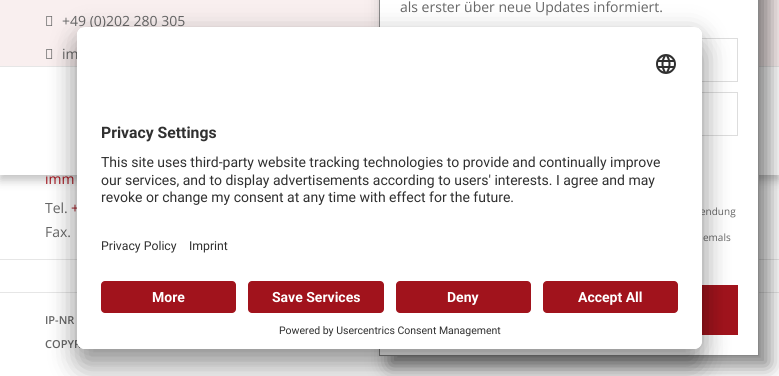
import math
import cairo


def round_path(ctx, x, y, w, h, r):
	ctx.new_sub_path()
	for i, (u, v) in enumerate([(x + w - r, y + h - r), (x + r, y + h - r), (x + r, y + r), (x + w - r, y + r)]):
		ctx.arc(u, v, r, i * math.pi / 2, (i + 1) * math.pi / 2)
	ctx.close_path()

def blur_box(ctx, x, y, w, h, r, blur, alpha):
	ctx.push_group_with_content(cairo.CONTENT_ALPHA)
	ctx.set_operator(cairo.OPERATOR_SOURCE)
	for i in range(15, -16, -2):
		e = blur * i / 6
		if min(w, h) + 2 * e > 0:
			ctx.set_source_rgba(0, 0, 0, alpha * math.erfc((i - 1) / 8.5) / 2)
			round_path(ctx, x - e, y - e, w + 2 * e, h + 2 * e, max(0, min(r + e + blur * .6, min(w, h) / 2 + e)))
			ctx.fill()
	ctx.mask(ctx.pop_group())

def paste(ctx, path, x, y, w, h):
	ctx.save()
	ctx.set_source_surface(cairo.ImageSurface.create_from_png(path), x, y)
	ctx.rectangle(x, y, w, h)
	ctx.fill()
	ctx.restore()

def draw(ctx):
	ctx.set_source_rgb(1, 1, 1)
	ctx.paint()
	ctx.set_source_rgb(0, 0, 0)
	blur_box(ctx, 0, 72, 779, 108, 0, 5, 0.25)
	ctx.set_source_rgb(0.973, 0.937, 0.937)
	ctx.rectangle(0, 0, 779, 66)
	ctx.fill()
	ctx.set_source_rgb(0.902, 0.902, 0.902)
	ctx.rectangle(0, 66, 779, 1)
	ctx.fill()
	paste(ctx, 'media/1.png', 46, 16, 7, 10)
	ctx.select_font_face('Open Sans')
	ctx.set_font_size(14)
	ctx.set_source_rgb(0.4, 0.4, 0.4)
	ctx.move_to(62, 26)
	ctx.show_text('+49 (0)202 280 305')
	paste(ctx, 'media/1.png', 46, 49, 7, 10)
	ctx.move_to(62, 59)
	ctx.show_text('im')
	ctx.set_source_rgb(0.631, 0.078, 0.11)
	ctx.move_to(45, 184)
	ctx.show_text('imm')
	ctx.set_source_rgb(1, 1, 1)
	ctx.rectangle(0, 67, 779, 108)
	ctx.fill()
	ctx.set_source_rgb(0.902, 0.902, 0.902)
	ctx.rectangle(0, 259, 779, 1)
	ctx.rectangle(0, 292, 779, 1)
	ctx.fill()
	ctx.set_source_rgb(0, 0, 0)
	blur_box(ctx, 389, -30, 380, 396, 0, 10, 0.5)
	ctx.set_source_rgb(1, 1, 1)
	ctx.rectangle(379.5, -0.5, 379, 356)
	ctx.fill_preserve()
	ctx.set_source_rgb(0.533, 0.533, 0.533)
	ctx.set_line_width(1)
	ctx.stroke()
	ctx.set_source_rgb(0.4, 0.4, 0.4)
	ctx.move_to(400, 12)
	ctx.show_text('als erster über neue Updates informiert.')
	ctx.rectangle(572.5, 38.5, 165, 43)
	ctx.set_source_rgb(0.867, 0.867, 0.867)
	ctx.stroke()
	ctx.rectangle(400.5, 92.5, 337, 43)
	ctx.stroke()
	ctx.set_font_size(10)
	ctx.set_source_rgb(0.4, 0.4, 0.4)
	ctx.move_to(700, 215)
	ctx.show_text('endung')
	ctx.move_to(703, 241)
	ctx.show_text('emals')
	ctx.set_source_rgb(0.631, 0.078, 0.11)
	ctx.rectangle(702, 285, 36, 50)
	ctx.fill()
	ctx.set_font_size(14)
	ctx.set_source_rgb(0.4, 0.4, 0.4)
	ctx.move_to(45, 213)
	ctx.show_text('Tel.')
	ctx.set_source_rgb(0.631, 0.078, 0.11)
	ctx.move_to(71, 213)
	ctx.show_text('+')
	ctx.set_source_rgb(0.4, 0.4, 0.4)
	ctx.move_to(45, 237)
	ctx.show_text('Fax.')
	ctx.select_font_face('Open Sans SemiBold')
	ctx.set_font_size(11)
	ctx.move_to(45, 324)
	ctx.show_text('IP-NR')
	ctx.move_to(45, 348)
	ctx.show_text('COPYR')
	ctx.set_source_rgb(0, 0, 0)
	blur_box(ctx, 77, 47, 625, 322, 8, 14, 0.3)
	blur_box(ctx, 77, 32, 625, 322, 8, 13, 0.22)
	ctx.set_source_rgb(1, 1, 1)
	round_path(ctx, 77, 27, 625, 322, 8)
	ctx.fill()
	ctx.save()
	round_path(ctx, 77, 27, 625, 322, 8)
	ctx.clip()
	ctx.new_path()
	ctx.move_to(85, 27)
	ctx.line_to(694, 27)
	ctx.curve_to(698.5, 27, 702, 30.5, 702, 35)
	ctx.line_to(702, 273)
	ctx.line_to(77, 273)
	ctx.line_to(77, 35)
	ctx.curve_to(77, 30.5, 80.5, 27, 85, 27)
	ctx.close_path()
	ctx.clip()
	ctx.rectangle(77, 28, 625, 245)
	ctx.fill()
	ctx.rectangle(77, 28, 625, 241)
	ctx.fill()
	ctx.restore()
	paste(ctx, 'media/2.png', 656, 54, 20, 20)
	ctx.select_font_face('Roboto', cairo.FONT_SLANT_NORMAL, cairo.FONT_WEIGHT_BOLD)
	ctx.set_font_size(15.75)
	ctx.set_source_rgb(0.188, 0.188, 0.188)
	ctx.move_to(101, 138)
	ctx.show_text('Privacy Settings')
	ctx.select_font_face('Roboto')
	ctx.set_font_size(14)
	for x, y, s in [
		(101, 167, 'This site uses third-party website tracking technologies to provide and continually improve'),
		(101, 185, 'our services, and to display advertisements according to users\' interests. I agree and may'),
		(101, 202, 'revoke or change my consent at any time with effect for the future.'),
	]:
		ctx.move_to(x, y)
		ctx.show_text(s)
	ctx.set_font_size(12.25)
	ctx.move_to(101, 250)
	ctx.show_text('Privacy Policy')
	ctx.move_to(189, 250)
	ctx.show_text('Imprint')
	ctx.set_source_rgb(1, 1, 1)
	ctx.new_path()
	ctx.move_to(77, 273)
	ctx.line_to(702, 273)
	ctx.line_to(702, 341)
	ctx.curve_to(702, 345.5, 698.5, 349, 694, 349)
	ctx.line_to(85, 349)
	ctx.curve_to(80.5, 349, 77, 345.5, 77, 341)
	ctx.close_path()
	ctx.fill()
	ctx.set_source_rgb(0.631, 0.078, 0.11)
	round_path(ctx, 101, 281, 135, 32, 4)
	ctx.fill()
	ctx.select_font_face('Roboto', cairo.FONT_SLANT_NORMAL, cairo.FONT_WEIGHT_BOLD)
	ctx.set_font_size(14)
	ctx.set_source_rgb(1, 1, 1)
	ctx.move_to(152, 302)
	ctx.show_text('More')
	ctx.set_source_rgb(0.631, 0.078, 0.11)
	round_path(ctx, 248, 281, 136, 32, 4)
	ctx.fill()
	ctx.set_source_rgb(1, 1, 1)
	ctx.move_to(272, 302)
	ctx.show_text('Save Services')
	ctx.set_source_rgb(0.631, 0.078, 0.11)
	round_path(ctx, 396, 281, 135, 32, 4)
	ctx.fill()
	ctx.set_source_rgb(1, 1, 1)
	ctx.move_to(447, 302)
	ctx.show_text('Deny')
	ctx.set_source_rgb(0.631, 0.078, 0.11)
	round_path(ctx, 543, 281, 135, 32, 4)
	ctx.fill()
	ctx.set_source_rgb(1, 1, 1)
	ctx.move_to(578, 302)
	ctx.show_text('Accept All')
	ctx.select_font_face('Roboto')
	ctx.set_font_size(10.5)
	ctx.set_source_rgb(0.188, 0.188, 0.188)
	ctx.move_to(279, 334)
	ctx.show_text('Powered by Usercentrics Consent Management')


surface = cairo.ImageSurface(cairo.FORMAT_RGB24, 779, 376)
ctx = cairo.Context(surface)
options = cairo.FontOptions()
options.set_hint_metrics(cairo.HINT_METRICS_OFF)
options.set_hint_style(cairo.HINT_STYLE_NONE)
ctx.set_font_options(options)
ctx.set_miter_limit(4)
draw(ctx)
surface.write_to_png('image.png')
